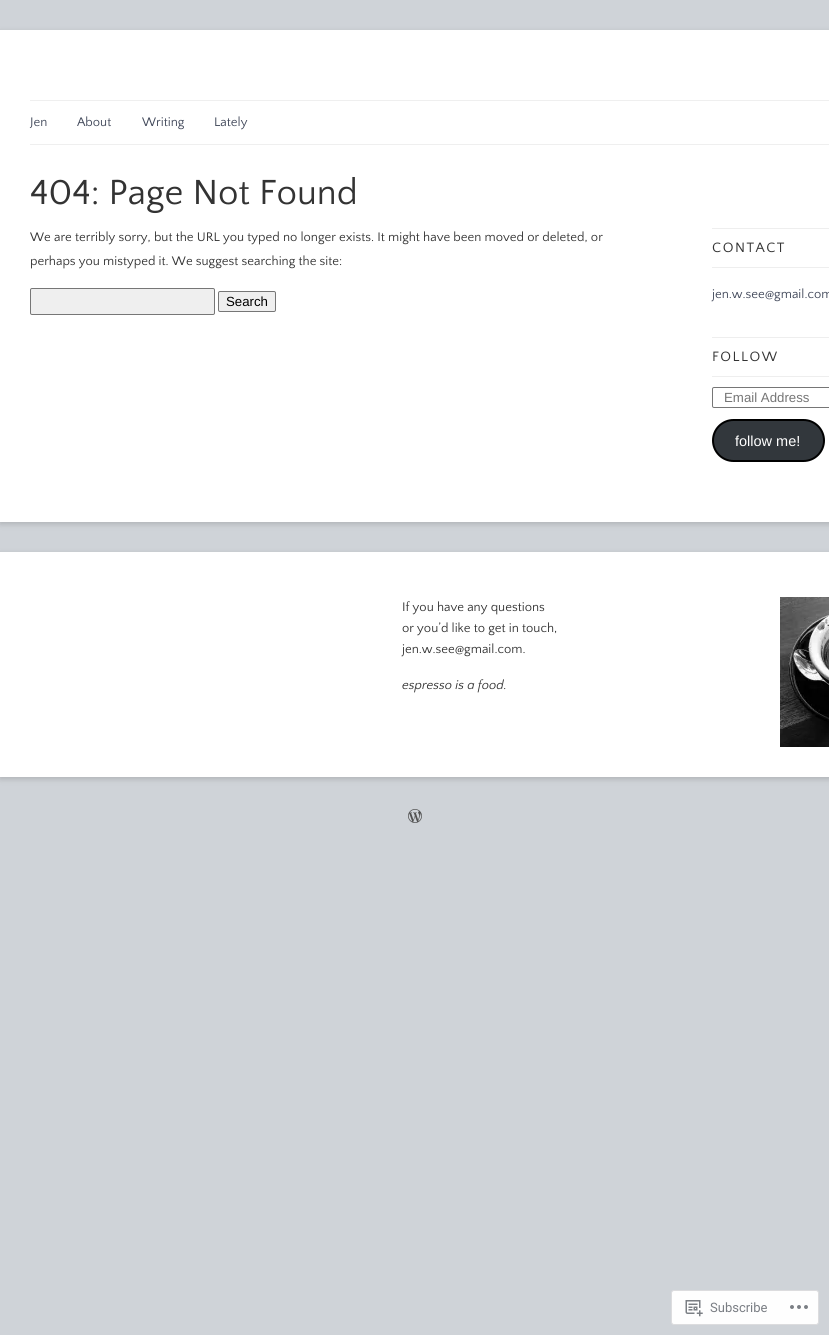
import math
import cairo


def write_spaced(ctx, x, y, s, letter, word):
	ctx.move_to(x, y)
	for ch in s:
		ctx.show_text(ch)
		ctx.rel_move_to(letter + word * (ch == ' '), 0)

def round_path(ctx, x, y, w, h, r):
	ctx.new_sub_path()
	for i, (u, v) in enumerate([(x + w - r, y + h - r), (x + r, y + h - r), (x + r, y + r), (x + w - r, y + r)]):
		ctx.arc(u, v, r, i * math.pi / 2, (i + 1) * math.pi / 2)
	ctx.close_path()

def blur_box(ctx, x, y, w, h, r, blur, alpha):
	ctx.push_group_with_content(cairo.CONTENT_ALPHA)
	ctx.set_operator(cairo.OPERATOR_SOURCE)
	for i in range(15, -16, -2):
		e = blur * i / 6
		if min(w, h) + 2 * e > 0:
			ctx.set_source_rgba(0, 0, 0, alpha * math.erfc((i - 1) / 8.5) / 2)
			round_path(ctx, x - e, y - e, w + 2 * e, h + 2 * e, max(0, min(r + e + blur * .6, min(w, h) / 2 + e)))
			ctx.fill()
	ctx.mask(ctx.pop_group())

def paste(ctx, path, x, y, w, h):
	ctx.save()
	ctx.set_source_surface(cairo.ImageSurface.create_from_png(path), x, y)
	ctx.rectangle(x, y, w, h)
	ctx.fill()
	ctx.restore()

def draw(ctx):
	ctx.set_source_rgb(0.812, 0.827, 0.847)
	ctx.paint()
	ctx.set_source_rgb(0.392, 0.392, 0.392)
	blur_box(ctx, 0, 32, 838, 492, 0, 3, 0.3)
	ctx.set_source_rgb(1, 1, 1)
	ctx.rectangle(0, 30, 829, 492)
	ctx.fill()
	ctx.set_source_rgb(0.937, 0.937, 0.937)
	ctx.rectangle(30, 100, 799, 1)
	ctx.rectangle(30, 144, 799, 1)
	ctx.fill()
	ctx.select_font_face('Quattrocento Sans')
	ctx.set_font_size(13)
	ctx.set_source_rgb(0.247, 0.275, 0.345)
	for x, y, s in [
		(30, 126, 'Jen'),
		(77, 126, 'About'),
		(142, 126, 'Writing'),
		(214, 126, 'Lately'),
	]:
		ctx.move_to(x, y)
		ctx.show_text(s)
	ctx.set_font_size(36.5)
	ctx.set_source_rgb(0.2, 0.2, 0.2)
	ctx.move_to(30, 204)
	ctx.show_text('404: Page Not Found')
	ctx.set_font_size(13)
	ctx.move_to(30, 241)
	ctx.show_text('We are terribly sorry, but the URL you typed no longer exists. It might have been moved or deleted, or')
	ctx.move_to(30, 265)
	ctx.show_text('perhaps you mistyped it. We suggest searching the site:')
	ctx.set_source_rgb(0.937, 0.937, 0.937)
	round_path(ctx, 30.5, 288.5, 184, 26, 1.5)
	ctx.fill_preserve()
	ctx.set_source_rgb(0.463, 0.463, 0.463)
	ctx.set_line_width(1)
	ctx.stroke()
	ctx.set_source_rgb(0.937, 0.937, 0.937)
	round_path(ctx, 218.5, 291.5, 57, 20, 1.5)
	ctx.fill_preserve()
	ctx.set_source_rgb(0.463, 0.463, 0.463)
	ctx.stroke()
	ctx.select_font_face('Liberation Sans')
	ctx.set_font_size(13.25)
	ctx.set_source_rgb(0, 0, 0)
	ctx.move_to(226, 306)
	ctx.show_text('Search')
	ctx.set_source_rgb(0.933, 0.933, 0.933)
	ctx.rectangle(712, 228, 117, 1)
	ctx.fill()
	ctx.rectangle(712, 267, 117, 1)
	ctx.fill()
	ctx.select_font_face('Quattrocento Sans')
	ctx.set_font_size(14.25)
	ctx.set_source_rgb(0.2, 0.2, 0.2)
	write_spaced(ctx, 712, 252, 'CONTACT', 1.5, 0)
	ctx.set_font_size(13)
	ctx.set_source_rgb(0.247, 0.275, 0.345)
	ctx.move_to(712, 298)
	ctx.show_text('jen.w.see@gmail.com')
	ctx.set_source_rgb(0.933, 0.933, 0.933)
	ctx.rectangle(712, 337, 117, 1)
	ctx.fill()
	ctx.rectangle(712, 376, 117, 1)
	ctx.fill()
	ctx.set_font_size(14.25)
	ctx.set_source_rgb(0.2, 0.2, 0.2)
	write_spaced(ctx, 712, 361, 'FOLLOW', 1.5, 0)
	round_path(ctx, 712.5, 387.5, 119, 20, 1.5)
	ctx.set_source_rgb(0.463, 0.463, 0.463)
	ctx.stroke()
	ctx.select_font_face('Liberation Sans')
	ctx.set_font_size(13.25)
	ctx.set_source_rgb(0.459, 0.459, 0.459)
	ctx.move_to(724, 402)
	ctx.show_text('Email Address')
	ctx.set_source_rgb(0.196, 0.216, 0.235)
	round_path(ctx, 713, 420, 111, 41, 20.5)
	ctx.fill_preserve()
	ctx.set_source_rgb(0, 0, 0)
	ctx.set_line_width(2)
	ctx.stroke()
	ctx.set_font_size(14.5)
	ctx.set_source_rgb(1, 1, 1)
	ctx.move_to(735, 446)
	ctx.show_text('follow me!')
	ctx.set_source_rgb(0.392, 0.392, 0.392)
	blur_box(ctx, 0, 554, 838, 225, 0, 3, 0.3)
	ctx.set_source_rgb(1, 1, 1)
	ctx.rectangle(0, 552, 829, 225)
	ctx.fill()
	ctx.select_font_face('Quattrocento Sans')
	ctx.set_font_size(13)
	ctx.set_source_rgb(0.2, 0.2, 0.2)
	for x, y, s in [
		(402, 611, 'If you have any questions'),
		(402, 632, 'or you’d like to get in touch,'),
		(402, 653, 'jen.w.see@gmail.com.'),
	]:
		ctx.move_to(x, y)
		ctx.show_text(s)
	ctx.select_font_face('Quattrocento Sans', cairo.FONT_SLANT_ITALIC)
	ctx.move_to(402, 689)
	ctx.show_text('espresso is a food.')
	paste(ctx, 'media/1.png', 780, 597, 49, 150)
	paste(ctx, 'media/2.png', 408, 809, 14, 14)
	ctx.set_source_rgb(0.996, 0.996, 0.996)
	round_path(ctx, 671.5, 1290.5, 147, 34, 2.5)
	ctx.fill_preserve()
	ctx.set_source_rgb(0.863, 0.863, 0.871)
	ctx.set_line_width(1)
	ctx.stroke()
	paste(ctx, 'media/3.png', 685, 1300, 18, 17)
	ctx.select_font_face('Roboto')
	ctx.set_source_rgb(0.478, 0.494, 0.518)
	ctx.move_to(710, 1312)
	ctx.show_text('Subscribe')
	paste(ctx, 'media/4.png', 790, 1305, 18, 4)


surface = cairo.ImageSurface(cairo.FORMAT_RGB24, 829, 1335)
ctx = cairo.Context(surface)
options = cairo.FontOptions()
options.set_hint_metrics(cairo.HINT_METRICS_OFF)
options.set_hint_style(cairo.HINT_STYLE_NONE)
ctx.set_font_options(options)
ctx.set_miter_limit(4)
draw(ctx)
surface.write_to_png('image.png')
